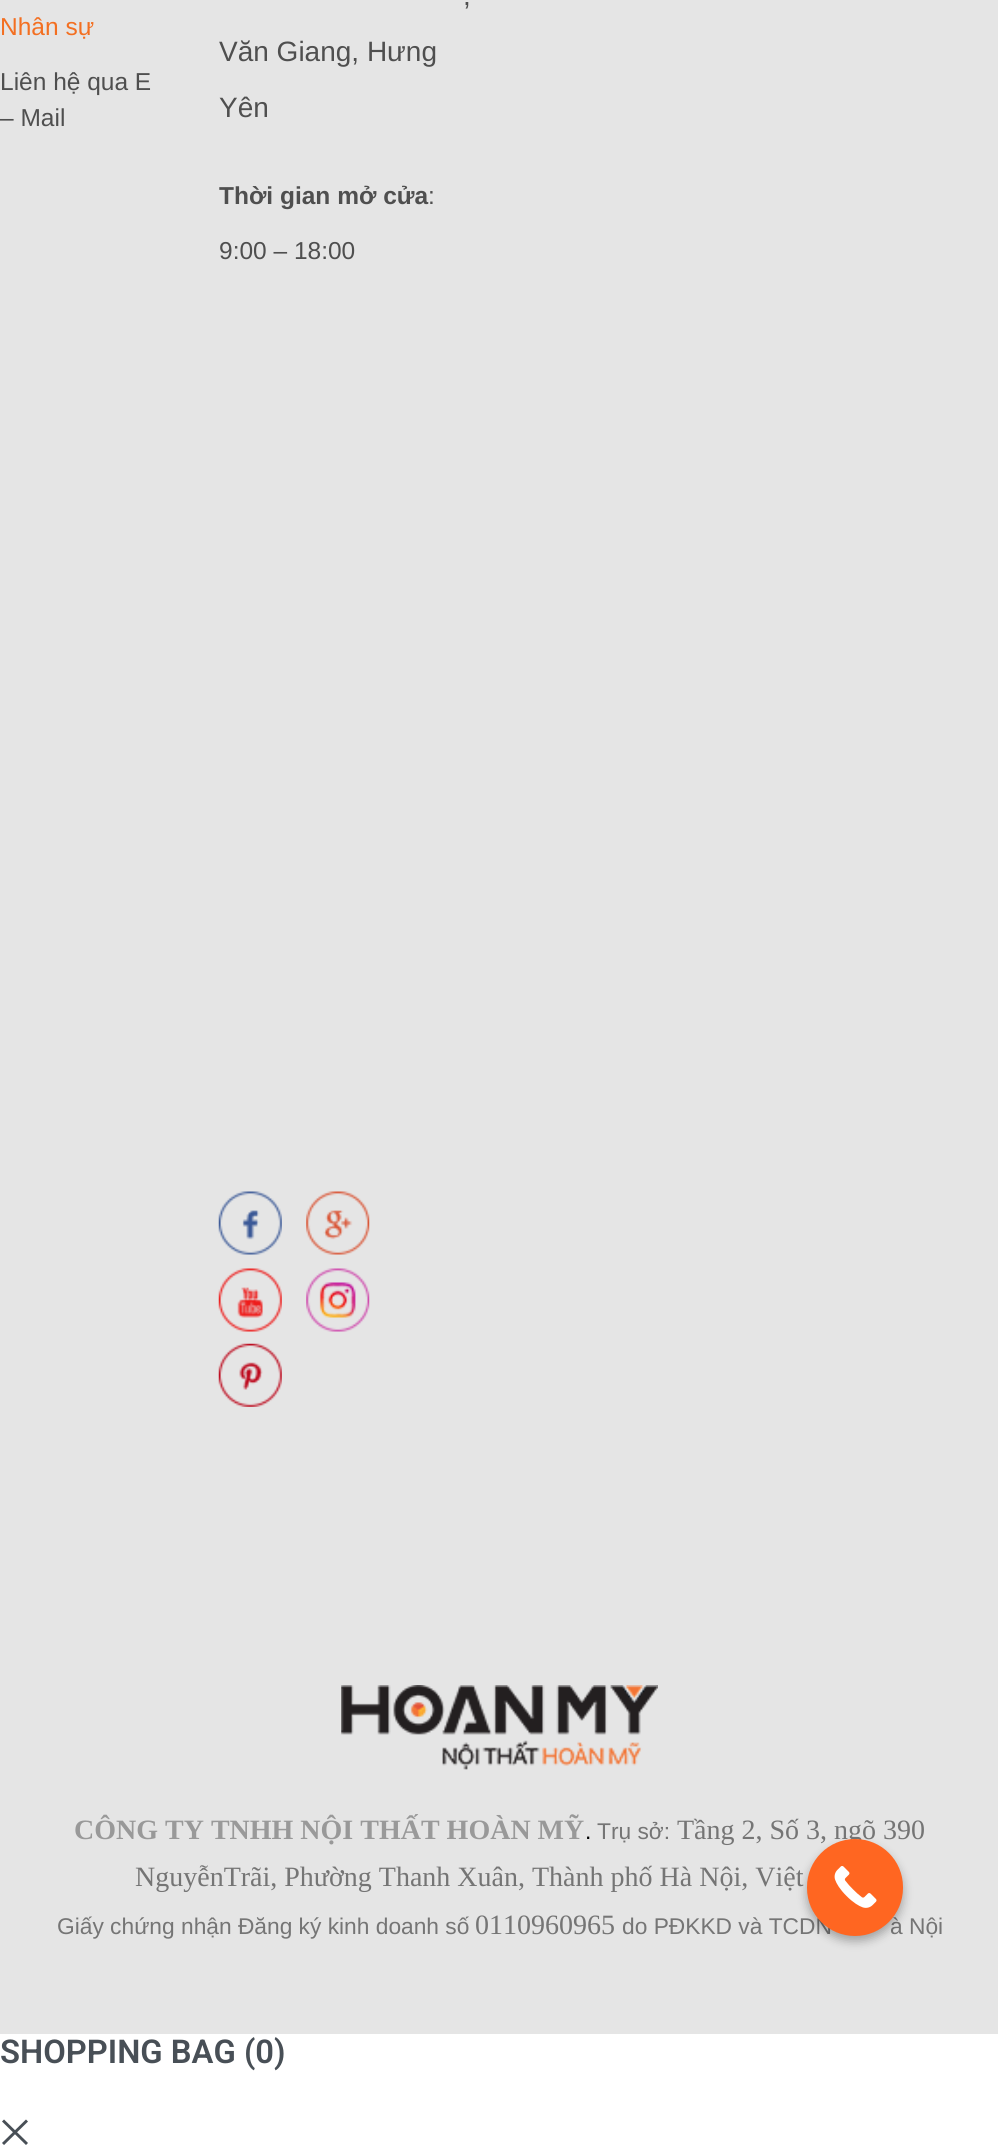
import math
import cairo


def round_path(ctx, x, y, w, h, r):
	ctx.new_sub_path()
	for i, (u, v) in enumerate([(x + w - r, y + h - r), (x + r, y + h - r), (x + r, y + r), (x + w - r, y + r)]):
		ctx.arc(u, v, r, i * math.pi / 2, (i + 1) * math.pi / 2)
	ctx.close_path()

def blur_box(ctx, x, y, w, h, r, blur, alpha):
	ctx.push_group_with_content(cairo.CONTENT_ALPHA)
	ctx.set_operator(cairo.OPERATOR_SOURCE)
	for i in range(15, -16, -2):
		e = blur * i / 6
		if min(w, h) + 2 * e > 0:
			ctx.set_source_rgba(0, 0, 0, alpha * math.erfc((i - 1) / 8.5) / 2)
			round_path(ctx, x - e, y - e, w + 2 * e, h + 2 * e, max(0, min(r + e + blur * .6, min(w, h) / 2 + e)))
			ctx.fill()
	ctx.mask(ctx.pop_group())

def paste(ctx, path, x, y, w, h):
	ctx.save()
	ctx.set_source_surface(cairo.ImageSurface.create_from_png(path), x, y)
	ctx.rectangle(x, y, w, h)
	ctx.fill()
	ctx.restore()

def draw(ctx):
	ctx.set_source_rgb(1, 1, 1)
	ctx.paint()
	ctx.set_source_rgb(0.898, 0.898, 0.898)
	ctx.rectangle(0, 0, 998, 2034)
	ctx.fill()
	ctx.select_font_face('Liberation Sans')
	ctx.set_font_size(24.5)
	ctx.set_source_rgb(0.953, 0.435, 0.129)
	ctx.move_to(0, 35)
	ctx.show_text('Nhân sự')
	ctx.set_source_rgb(0.31, 0.31, 0.31)
	ctx.move_to(0, 90)
	ctx.show_text('Liên hệ qua E')
	ctx.move_to(0, 126)
	ctx.show_text('– Mail')
	ctx.set_font_size(28)
	for x, y, s in [
		(463, 5, ','),
		(219, 61, 'Văn Giang, Hưng'),
		(219, 117, 'Yên'),
	]:
		ctx.move_to(x, y)
		ctx.show_text(s)
	ctx.select_font_face('Liberation Sans', cairo.FONT_SLANT_NORMAL, cairo.FONT_WEIGHT_BOLD)
	ctx.set_font_size(24.5)
	ctx.move_to(219, 204)
	ctx.show_text('Thời gian mở cửa')
	ctx.select_font_face('Liberation Sans')
	ctx.move_to(428, 204)
	ctx.show_text(':')
	ctx.move_to(219, 259)
	ctx.show_text('9:00 – 18:00')
	paste(ctx, 'media/1.png', 218, 1191, 64, 64)
	paste(ctx, 'media/2.png', 306, 1191, 64, 64)
	paste(ctx, 'media/3.png', 218, 1268, 64, 64)
	paste(ctx, 'media/4.png', 306, 1268, 64, 64)
	paste(ctx, 'media/5.png', 218, 1343, 64, 64)
	paste(ctx, 'media/6.png', 341, 1685, 317, 85)
	ctx.select_font_face('Liberation Serif', cairo.FONT_SLANT_NORMAL, cairo.FONT_WEIGHT_BOLD)
	ctx.set_font_size(28)
	ctx.set_source_rgb(0.6, 0.6, 0.6)
	ctx.move_to(74, 1839)
	ctx.show_text('CÔNG TY TNHH NỘI THẤT HOÀN MỸ')
	ctx.select_font_face('Liberation Sans')
	ctx.set_font_size(22.75)
	ctx.set_source_rgb(0, 0, 0)
	ctx.move_to(585, 1839)
	ctx.show_text('.')
	ctx.set_source_rgb(0.459, 0.459, 0.459)
	ctx.move_to(597, 1839)
	ctx.show_text('Trụ sở:')
	ctx.select_font_face('Liberation Serif')
	ctx.set_font_size(28)
	ctx.move_to(677, 1839)
	ctx.show_text('Tầng 2, Số 3, ngõ 390')
	ctx.move_to(135, 1886)
	ctx.show_text('NguyễnTrãi, Phường Thanh Xuân, Thành phố Hà Nội, Việt')
	ctx.select_font_face('Liberation Sans')
	ctx.set_font_size(22.75)
	ctx.move_to(57, 1934)
	ctx.show_text('Giấy chứng nhận Đăng ký kinh doanh số')
	ctx.select_font_face('Liberation Serif')
	ctx.set_font_size(28)
	ctx.move_to(475, 1934)
	ctx.show_text('0110960965')
	ctx.select_font_face('Liberation Sans')
	ctx.set_font_size(22.75)
	ctx.move_to(622, 1934)
	ctx.show_text('do PĐKKD và TCDN')
	ctx.move_to(890, 1934)
	ctx.show_text('à Nội')
	ctx.set_source_rgb(0, 0, 0)
	blur_box(ctx, 807, 1845, 96, 96, 48, 5, 0.3)
	ctx.set_source_rgb(1, 0.4, 0.129)
	round_path(ctx, 807, 1839, 96, 97, 48)
	ctx.fill()
	paste(ctx, 'media/7.png', 834, 1866, 43, 42)
	ctx.select_font_face('Roboto SemiBold')
	ctx.set_font_size(32.75)
	ctx.set_source_rgb(0.282, 0.31, 0.337)
	ctx.move_to(0, 2063)
	ctx.show_text('SHOPPING BAG (0)')
	ctx.new_path()
	ctx.move_to(3, 2120.5)
	ctx.line_to(27, 2144)
	ctx.close_path()
	ctx.move_to(3, 2144)
	ctx.line_to(27, 2120.5)
	ctx.close_path()
	ctx.set_line_width(2.9)
	ctx.set_line_cap(cairo.LINE_CAP_SQUARE)
	ctx.stroke()


surface = cairo.ImageSurface(cairo.FORMAT_RGB24, 998, 2153)
ctx = cairo.Context(surface)
options = cairo.FontOptions()
options.set_hint_metrics(cairo.HINT_METRICS_OFF)
options.set_hint_style(cairo.HINT_STYLE_NONE)
ctx.set_font_options(options)
ctx.set_miter_limit(4)
draw(ctx)
surface.write_to_png('image.png')
